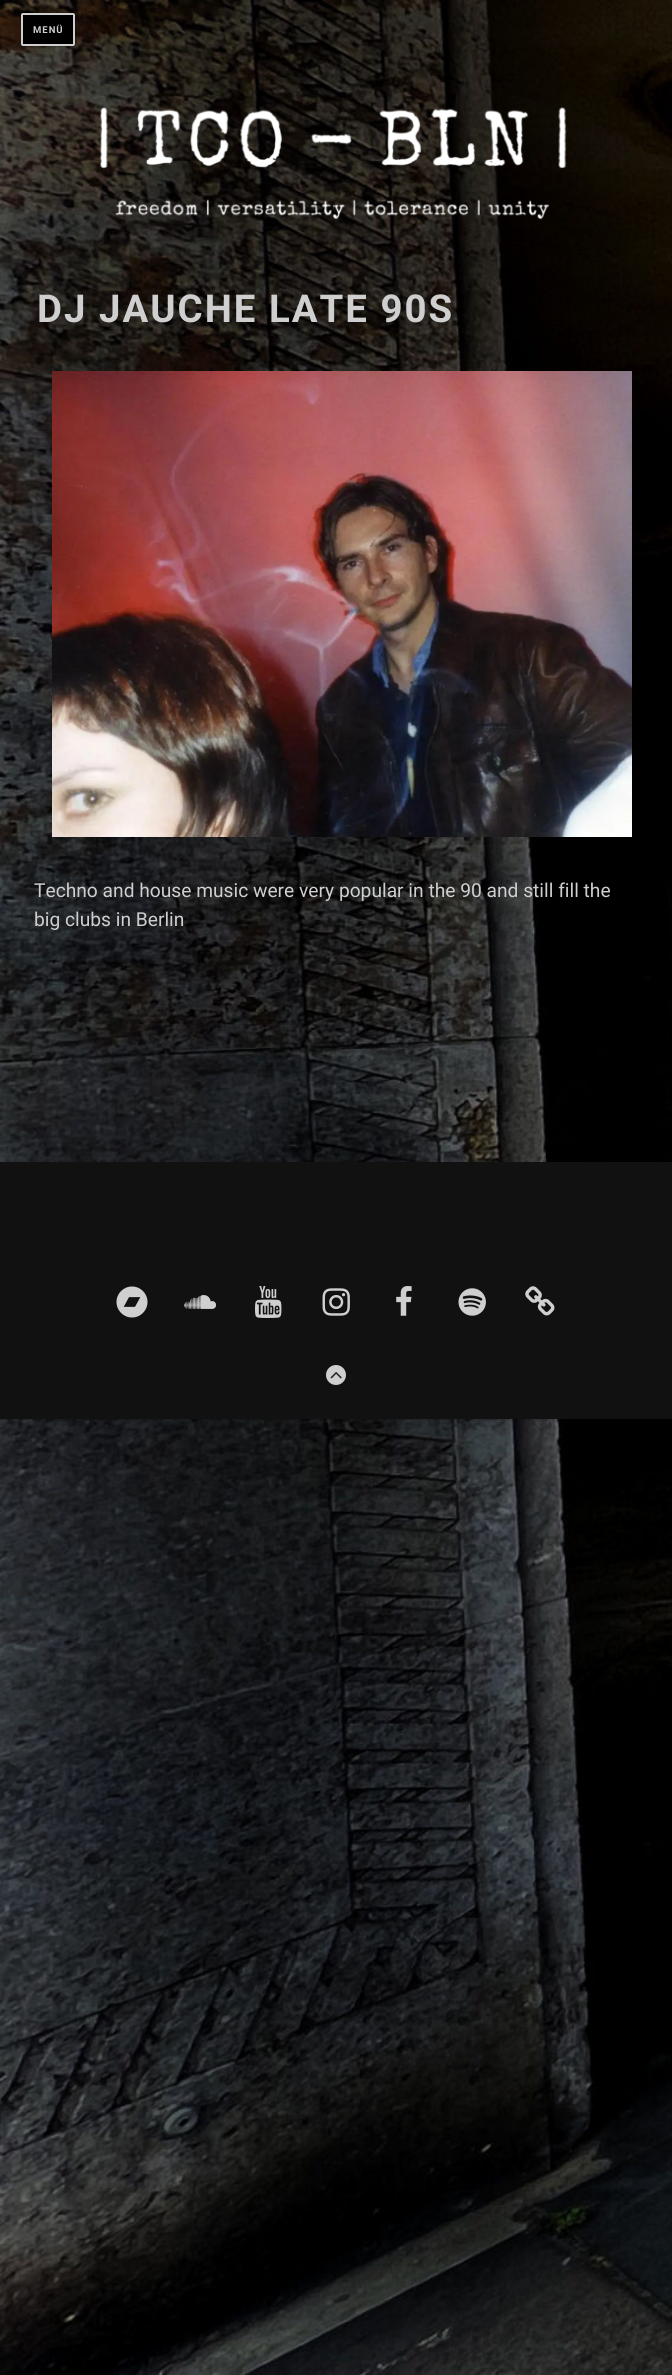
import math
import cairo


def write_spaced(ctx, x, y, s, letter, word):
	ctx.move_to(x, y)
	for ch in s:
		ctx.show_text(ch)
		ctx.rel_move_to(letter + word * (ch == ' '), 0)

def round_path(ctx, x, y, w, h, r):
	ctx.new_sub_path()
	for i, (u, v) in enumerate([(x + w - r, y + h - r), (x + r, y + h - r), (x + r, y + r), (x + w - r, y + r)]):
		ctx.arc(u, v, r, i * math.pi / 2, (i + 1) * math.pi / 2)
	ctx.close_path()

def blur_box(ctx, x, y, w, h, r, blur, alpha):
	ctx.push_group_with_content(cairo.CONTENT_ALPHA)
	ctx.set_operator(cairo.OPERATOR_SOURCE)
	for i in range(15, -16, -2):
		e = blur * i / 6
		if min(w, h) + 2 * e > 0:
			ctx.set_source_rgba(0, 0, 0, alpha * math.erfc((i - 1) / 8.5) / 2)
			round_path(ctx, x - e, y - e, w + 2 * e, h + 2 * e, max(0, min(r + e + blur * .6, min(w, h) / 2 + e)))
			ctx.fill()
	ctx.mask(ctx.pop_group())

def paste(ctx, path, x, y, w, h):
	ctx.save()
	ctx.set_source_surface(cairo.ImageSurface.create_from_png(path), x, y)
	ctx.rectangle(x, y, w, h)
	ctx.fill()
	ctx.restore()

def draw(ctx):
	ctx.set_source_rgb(1, 1, 1)
	ctx.paint()
	paste(ctx, 'media/1.png', 0, 0, 672, 2375)
	ctx.set_source_rgb(0, 0, 0)
	blur_box(ctx, 21, 14, 54, 33, 2, 1, 0.2)
	ctx.set_source_rgb(0, 0, 0)
	round_path(ctx, 22, 14, 52, 31, 1)
	ctx.fill_preserve()
	ctx.set_source_rgb(0.812, 0.812, 0.812)
	ctx.stroke()
	ctx.select_font_face('Roboto', cairo.FONT_SLANT_NORMAL, cairo.FONT_WEIGHT_BOLD)
	ctx.set_font_size(9.5)
	write_spaced(ctx, 33, 33, 'MENÜ', 1, 0)
	paste(ctx, 'media/2.png', 99, 107, 468, 113)
	ctx.set_font_size(38.4)
	write_spaced(ctx, 37, 322, 'DJ JAUCHE LATE 90S', 2, 0)
	paste(ctx, 'media/3.png', 52, 371, 580, 466)
	ctx.select_font_face('Roboto')
	ctx.set_font_size(19.2)
	ctx.move_to(34, 897)
	ctx.show_text('Techno and house music were very popular in the 90 and still fill the')
	ctx.move_to(34, 926)
	ctx.show_text('big clubs in Berlin')
	ctx.set_source_rgb(0, 0, 0)
	blur_box(ctx, 0, 1163, 672, 257, 0, 1, 0.2)
	ctx.set_source_rgb(0.067, 0.067, 0.067)
	ctx.rectangle(0, 1162, 672, 257)
	ctx.fill()
	paste(ctx, 'media/4.png', 116, 1286, 32, 32)
	paste(ctx, 'media/5.png', 184, 1295, 32, 14)
	paste(ctx, 'media/6.png', 255, 1286, 27, 32)
	paste(ctx, 'media/7.png', 322, 1288, 28, 28)
	paste(ctx, 'media/8.png', 396, 1286, 16, 30)
	paste(ctx, 'media/9.png', 458, 1288, 28, 28)
	paste(ctx, 'media/10.png', 525, 1286, 30, 30)
	ctx.set_source_rgb(0.812, 0.812, 0.812)
	ctx.arc(336, 1375, 10, 0, 2 * math.pi)
	ctx.fill()
	paste(ctx, 'media/11.png', 330, 1372, 12, 7)


surface = cairo.ImageSurface(cairo.FORMAT_RGB24, 672, 2375)
ctx = cairo.Context(surface)
options = cairo.FontOptions()
options.set_hint_metrics(cairo.HINT_METRICS_OFF)
options.set_hint_style(cairo.HINT_STYLE_NONE)
ctx.set_font_options(options)
ctx.set_miter_limit(4)
draw(ctx)
surface.write_to_png('image.png')
